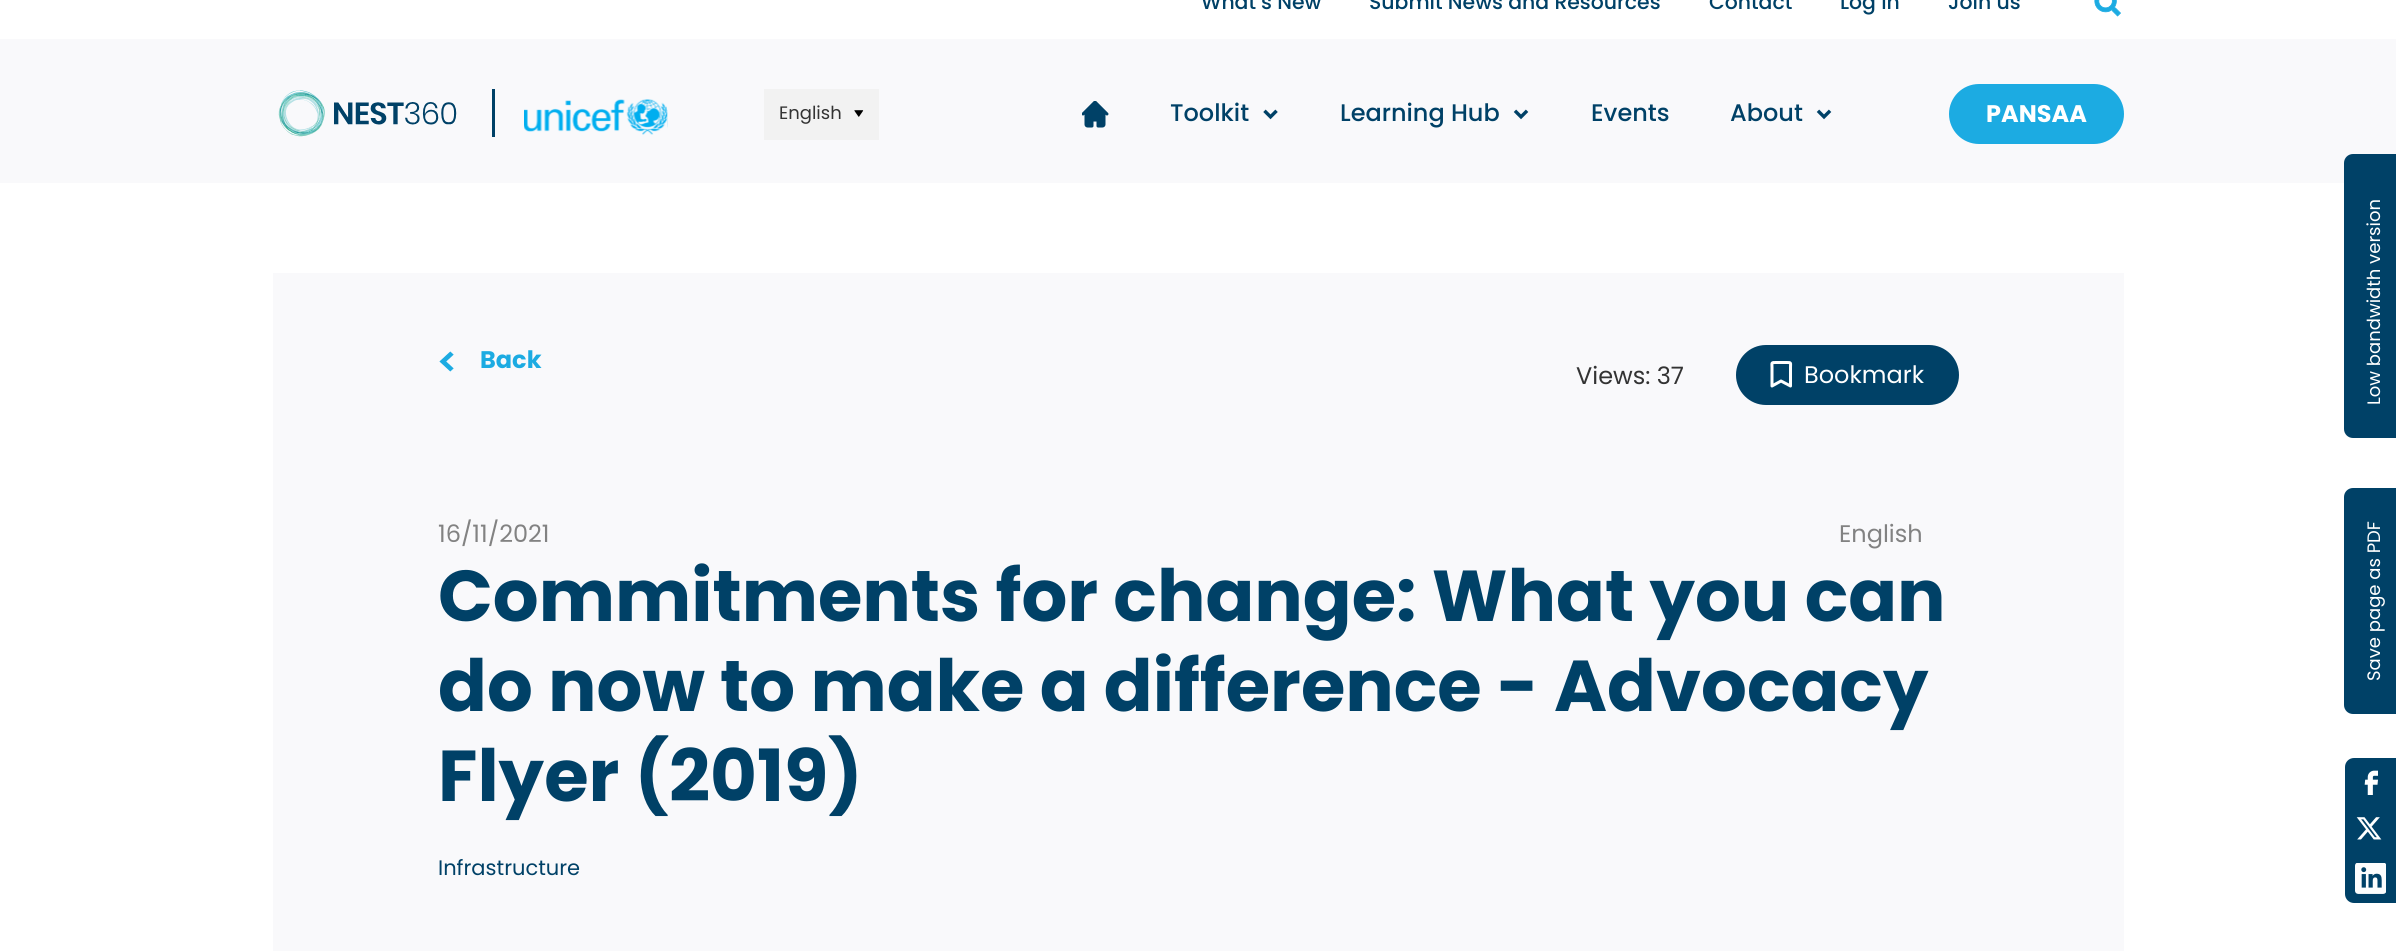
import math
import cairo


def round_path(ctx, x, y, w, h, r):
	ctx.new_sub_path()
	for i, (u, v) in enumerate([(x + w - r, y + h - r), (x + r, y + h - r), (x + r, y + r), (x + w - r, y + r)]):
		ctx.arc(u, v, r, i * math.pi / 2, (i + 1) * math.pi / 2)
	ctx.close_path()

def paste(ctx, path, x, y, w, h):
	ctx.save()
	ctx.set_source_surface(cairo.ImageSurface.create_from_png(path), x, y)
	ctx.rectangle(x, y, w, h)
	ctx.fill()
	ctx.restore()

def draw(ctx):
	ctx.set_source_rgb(1, 1, 1)
	ctx.paint()
	ctx.set_source_rgb(0.973, 0.973, 0.984)
	ctx.rectangle(0, 39, 2396, 144)
	ctx.fill()
	ctx.select_font_face('Poppins Medium')
	ctx.set_font_size(20.4)
	ctx.set_source_rgb(0, 0.255, 0.404)
	for x, y, s in [
		(1201, 9, 'What’s New'),
		(1369, 9, 'Submit News and Resources'),
		(1709, 9, 'Contact'),
		(1840, 9, 'Log in'),
		(1948, 9, 'Join us'),
	]:
		ctx.move_to(x, y)
		ctx.show_text(s)
	paste(ctx, 'media/1.png', 2094, 0, 27, 17)
	ctx.rectangle(492, 89, 3, 48)
	ctx.fill()
	paste(ctx, 'media/2.png', 278, 90, 179, 47)
	paste(ctx, 'media/3.png', 524, 99, 144, 36)
	ctx.set_source_rgb(0.949, 0.949, 0.949)
	ctx.rectangle(764, 89, 115, 51)
	ctx.fill()
	ctx.select_font_face('Poppins')
	ctx.set_font_size(18)
	ctx.set_source_rgb(0.2, 0.2, 0.2)
	ctx.move_to(779, 119)
	ctx.show_text('English')
	paste(ctx, 'media/4.png', 854, 110, 10, 7)
	paste(ctx, 'media/5.png', 1082, 101, 27, 27)
	ctx.select_font_face('Poppins Medium')
	ctx.set_font_size(24)
	ctx.set_source_rgb(0, 0.255, 0.404)
	ctx.move_to(1170, 121)
	ctx.show_text('Toolkit')
	paste(ctx, 'media/6.png', 1263, 109, 15, 11)
	ctx.move_to(1340, 121)
	ctx.show_text('Learning Hub')
	paste(ctx, 'media/7.png', 1513, 109, 16, 11)
	ctx.move_to(1591, 121)
	ctx.show_text('Events')
	ctx.move_to(1730, 121)
	ctx.show_text('About')
	paste(ctx, 'media/7.png', 1816, 109, 16, 11)
	ctx.set_source_rgb(0.11, 0.671, 0.886)
	round_path(ctx, 1950.5, 85.5, 172, 57, 28.5)
	ctx.fill_preserve()
	ctx.set_line_width(3)
	ctx.stroke()
	ctx.select_font_face('Poppins', cairo.FONT_SLANT_NORMAL, cairo.FONT_WEIGHT_BOLD)
	ctx.set_source_rgb(1, 1, 1)
	ctx.move_to(1986, 122)
	ctx.show_text('PANSAA')
	ctx.set_source_rgb(0.973, 0.973, 0.984)
	ctx.rectangle(273, 273, 1851, 678)
	ctx.fill()
	paste(ctx, 'media/8.png', 439, 351, 15, 21)
	ctx.set_source_rgb(0.11, 0.671, 0.886)
	ctx.move_to(480, 368)
	ctx.show_text('Back')
	ctx.select_font_face('Poppins')
	ctx.set_source_rgb(0.2, 0.2, 0.2)
	ctx.move_to(1576, 384)
	ctx.show_text('Views: 37')
	ctx.set_source_rgb(0, 0.255, 0.404)
	round_path(ctx, 1737, 346, 221, 58, 29)
	ctx.fill_preserve()
	ctx.set_line_width(2)
	ctx.stroke()
	ctx.new_path()
	ctx.move_to(1781, 381)
	ctx.line_to(1772, 386)
	ctx.line_to(1772, 367.5)
	ctx.curve_to(1772, 362.5, 1771, 362.5, 1776, 362.5)
	ctx.line_to(1786.5, 362.5)
	ctx.curve_to(1791.5, 362.5, 1790.5, 362.5, 1790.5, 367.5)
	ctx.line_to(1790.5, 386)
	ctx.close_path()
	ctx.set_source_rgb(1, 1, 1)
	ctx.set_line_width(3)
	ctx.set_line_cap(cairo.LINE_CAP_ROUND)
	ctx.set_line_join(cairo.LINE_JOIN_ROUND)
	ctx.stroke()
	ctx.move_to(1804, 383)
	ctx.show_text('Bookmark')
	ctx.set_source_rgb(0.51, 0.51, 0.51)
	ctx.move_to(438, 542)
	ctx.show_text('16/11/2021')
	ctx.move_to(1839, 542)
	ctx.show_text('English')
	ctx.select_font_face('Poppins', cairo.FONT_SLANT_NORMAL, cairo.FONT_WEIGHT_BOLD)
	ctx.set_font_size(72)
	ctx.set_source_rgb(0, 0.255, 0.404)
	for x, y, s in [
		(438, 621, 'Commitments for change: What you can'),
		(438, 711, 'do now to make a difference - Advocacy'),
		(438, 801, 'Flyer (2019)'),
	]:
		ctx.move_to(x, y)
		ctx.show_text(s)
	ctx.select_font_face('Poppins')
	ctx.set_font_size(21)
	ctx.move_to(438, 875)
	ctx.show_text('Infrastructure')
	ctx.new_path()
	ctx.move_to(2344, 429)
	ctx.line_to(2344, 163)
	ctx.curve_to(2344, 158, 2348, 154, 2353, 154)
	ctx.line_to(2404, 154)
	ctx.line_to(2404, 438)
	ctx.line_to(2353, 438)
	ctx.curve_to(2348, 438, 2344, 434, 2344, 429)
	ctx.close_path()
	ctx.fill()
	ctx.set_font_size(18)
	ctx.set_source_rgb(1, 1, 1)
	ctx.save()
	ctx.translate(2380, 405)
	ctx.rotate(-90 * math.pi / 180)
	ctx.move_to(0, 0)
	ctx.show_text('Low bandwidth version')
	ctx.restore()
	ctx.set_source_rgb(0, 0.255, 0.404)
	ctx.new_path()
	ctx.move_to(2344, 705)
	ctx.line_to(2344, 497)
	ctx.curve_to(2344, 492, 2348, 488, 2353, 488)
	ctx.line_to(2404, 488)
	ctx.line_to(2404, 714)
	ctx.line_to(2353, 714)
	ctx.curve_to(2348, 714, 2344, 710, 2344, 705)
	ctx.close_path()
	ctx.fill()
	ctx.set_source_rgb(1, 1, 1)
	ctx.save()
	ctx.translate(2380, 681)
	ctx.rotate(-90 * math.pi / 180)
	ctx.move_to(0, 0)
	ctx.show_text('Save page as PDF')
	ctx.restore()
	ctx.set_source_rgb(0, 0.255, 0.404)
	ctx.new_path()
	ctx.move_to(2354, 758)
	ctx.line_to(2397, 758)
	ctx.line_to(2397, 806)
	ctx.line_to(2345, 806)
	ctx.line_to(2345, 767)
	ctx.curve_to(2345, 762, 2349, 758, 2354, 758)
	ctx.close_path()
	ctx.fill()
	paste(ctx, 'media/9.png', 2364, 770, 14, 25)
	ctx.rectangle(2345, 806, 51, 49)
	ctx.fill()
	paste(ctx, 'media/10.png', 2356, 817, 26, 23)
	ctx.new_path()
	ctx.move_to(2345, 855)
	ctx.line_to(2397, 855)
	ctx.line_to(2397, 903)
	ctx.line_to(2354, 903)
	ctx.curve_to(2349, 903, 2345, 899, 2345, 894)
	ctx.close_path()
	ctx.fill()
	paste(ctx, 'media/11.png', 2355, 863, 31, 31)


surface = cairo.ImageSurface(cairo.FORMAT_RGB24, 2396, 951)
ctx = cairo.Context(surface)
options = cairo.FontOptions()
options.set_hint_metrics(cairo.HINT_METRICS_OFF)
options.set_hint_style(cairo.HINT_STYLE_NONE)
ctx.set_font_options(options)
ctx.set_miter_limit(4)
draw(ctx)
surface.write_to_png('image.png')
